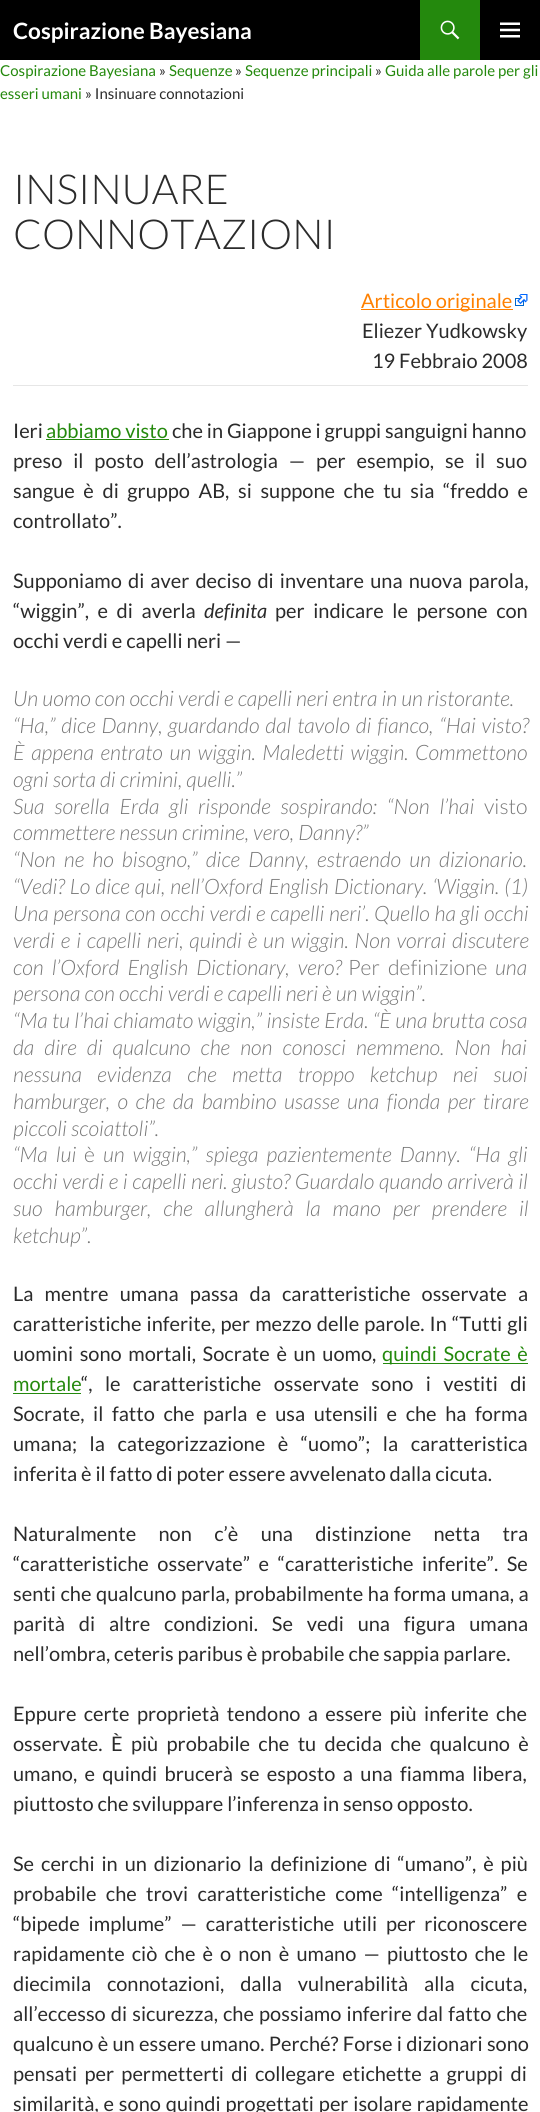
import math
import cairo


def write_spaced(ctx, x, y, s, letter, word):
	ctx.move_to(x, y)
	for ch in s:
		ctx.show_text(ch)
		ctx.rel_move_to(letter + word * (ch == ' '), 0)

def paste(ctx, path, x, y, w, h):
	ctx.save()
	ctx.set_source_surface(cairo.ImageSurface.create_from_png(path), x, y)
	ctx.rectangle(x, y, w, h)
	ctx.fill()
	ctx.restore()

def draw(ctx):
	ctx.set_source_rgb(1, 1, 1)
	ctx.paint()
	ctx.set_source_rgb(0, 0, 0)
	ctx.rectangle(0, 0, 540, 60)
	ctx.fill()
	ctx.select_font_face('Lato', cairo.FONT_SLANT_NORMAL, cairo.FONT_WEIGHT_BOLD)
	ctx.set_font_size(22.5)
	ctx.set_source_rgb(1, 1, 1)
	ctx.move_to(13, 39)
	ctx.show_text('Cospirazione Bayesiana')
	ctx.set_source_rgb(0.141, 0.537, 0.051)
	ctx.rectangle(420, 0, 60, 60)
	ctx.fill()
	paste(ctx, 'media/1.png', 440, 20, 20, 20)
	paste(ctx, 'media/2.png', 500, 22, 20, 16)
	ctx.select_font_face('Lato')
	ctx.set_font_size(15)
	ctx.move_to(0, 76)
	ctx.show_text('Cospirazione Bayesiana')
	ctx.set_source_rgb(0.169, 0.169, 0.169)
	ctx.move_to(159, 76)
	ctx.show_text('»')
	ctx.set_source_rgb(0.141, 0.537, 0.051)
	ctx.move_to(169, 76)
	ctx.show_text('Sequenze')
	ctx.set_source_rgb(0.169, 0.169, 0.169)
	ctx.move_to(235, 76)
	ctx.show_text('»')
	ctx.set_source_rgb(0.141, 0.537, 0.051)
	ctx.move_to(245, 76)
	ctx.show_text('Sequenze principali')
	ctx.set_source_rgb(0.169, 0.169, 0.169)
	ctx.move_to(375, 76)
	ctx.show_text('»')
	ctx.set_source_rgb(0.141, 0.537, 0.051)
	ctx.move_to(385, 76)
	ctx.show_text('Guida alle parole per gli')
	ctx.move_to(0, 99)
	ctx.show_text('esseri umani')
	ctx.set_source_rgb(0.169, 0.169, 0.169)
	ctx.move_to(85, 99)
	ctx.show_text('» Insinuare connotazioni')
	ctx.select_font_face('Lato Light')
	ctx.set_font_size(41.25)
	ctx.move_to(13, 204)
	ctx.show_text('INSINUARE')
	ctx.move_to(13, 249)
	ctx.show_text('CONNOTAZIONI')
	paste(ctx, 'media/3.png', 515, 294, 13, 12)
	ctx.set_source_rgb(1, 0.502, 0)
	ctx.rectangle(361, 309, 152, 1)
	ctx.fill()
	ctx.select_font_face('Lato')
	ctx.set_font_size(20)
	ctx.move_to(361, 308)
	ctx.show_text('Articolo originale')
	ctx.set_source_rgb(0.169, 0.169, 0.169)
	ctx.move_to(362, 338)
	ctx.show_text('Eliezer Yudkowsky')
	ctx.move_to(372, 368)
	ctx.show_text('19 Febbraio 2008')
	ctx.set_source_rgb(0.902, 0.902, 0.902)
	ctx.rectangle(13, 385, 515, 1)
	ctx.fill()
	ctx.set_source_rgb(0.169, 0.169, 0.169)
	ctx.move_to(13, 438)
	ctx.show_text('Ieri')
	ctx.set_source_rgb(0.141, 0.537, 0.051)
	ctx.move_to(46, 438)
	ctx.show_text('abbiamo visto')
	ctx.rectangle(46, 439, 123, 1)
	ctx.fill()
	ctx.set_source_rgb(0.169, 0.169, 0.169)
	ctx.move_to(172, 438)
	ctx.show_text('che in Giappone i gruppi sanguigni hanno')
	write_spaced(ctx, 13, 468, 'preso il posto dell’astrologia — per esempio, se il suo', 0, 7)
	write_spaced(ctx, 13, 498, 'sangue è di gruppo AB, si suppone che tu sia “freddo e', 0, 4.75)
	ctx.move_to(13, 528)
	ctx.show_text('controllato”.')
	write_spaced(ctx, 13, 588, 'Supponiamo di aver deciso di inventare una nuova parola,', 0, 2.25)
	write_spaced(ctx, 13, 618, '“wiggin”, e di averla', 0, 4.75)
	ctx.select_font_face('Lato', cairo.FONT_SLANT_ITALIC)
	ctx.move_to(204, 618)
	ctx.show_text('definita')
	ctx.select_font_face('Lato')
	write_spaced(ctx, 275, 618, 'per indicare le persone con', 0, 4.75)
	ctx.move_to(13, 648)
	ctx.show_text('occhi verdi e capelli neri —')
	ctx.select_font_face('Lato Light', cairo.FONT_SLANT_ITALIC)
	ctx.set_font_size(21.25)
	ctx.set_source_rgb(0.463, 0.463, 0.463)
	ctx.move_to(13, 706)
	ctx.show_text('Un uomo con occhi verdi e capelli neri entra in un ristorante.')
	write_spaced(ctx, 13, 733, '“Ha,” dice Danny, guardando dal tavolo di fianco, “Hai visto?', 0, 1.75)
	write_spaced(ctx, 13, 760, 'È appena entrato un wiggin. Maledetti wiggin. Commettono', 0, 2.5)
	ctx.move_to(13, 787)
	ctx.show_text('ogni sorta di crimini, quelli.”')
	write_spaced(ctx, 13, 814, 'Sua sorella Erda gli risponde sospirando: “Non l’hai', 0, 5.75)
	ctx.select_font_face('Lato Light')
	ctx.move_to(484, 814)
	ctx.show_text('visto')
	ctx.select_font_face('Lato Light', cairo.FONT_SLANT_ITALIC)
	ctx.move_to(13, 840)
	ctx.show_text('commettere nessun crimine, vero, Danny?”')
	write_spaced(ctx, 13, 867, '“Non ne ho bisogno,” dice Danny, estraendo un dizionario.', 0, 4)
	write_spaced(ctx, 13, 894, '“Vedi? Lo dice qui, nell’Oxford English Dictionary. ‘Wiggin. (1)', 0, 1)
	write_spaced(ctx, 13, 921, 'Una persona con occhi verdi e capelli neri’. Quello ha gli occhi', 0, 0.5)
	write_spaced(ctx, 13, 948, 'verdi e i capelli neri, quindi è un wiggin. Non vorrai discutere', 0, 1.75)
	write_spaced(ctx, 13, 975, 'con l’Oxford English Dictionary, vero?', 0, 4)
	ctx.select_font_face('Lato Light')
	write_spaced(ctx, 348, 975, 'Per definizione', 0, 4)
	ctx.select_font_face('Lato Light', cairo.FONT_SLANT_ITALIC)
	ctx.move_to(495, 975)
	ctx.show_text('una')
	ctx.move_to(13, 1001)
	ctx.show_text('persona con occhi verdi e capelli neri è un wiggin”.')
	write_spaced(ctx, 13, 1028, '“Ma tu l’hai chiamato wiggin,” insiste Erda. “È una brutta cosa', 0, 0.25)
	write_spaced(ctx, 13, 1055, 'da dire di qualcuno che non conosci nemmeno. Non hai', 0, 6)
	write_spaced(ctx, 13, 1082, 'nessuna evidenza che metta troppo ketchup nei suoi', 0, 11.25)
	write_spaced(ctx, 13, 1109, 'hamburger, o che da bambino usasse una fionda per tirare', 0, 3.5)
	ctx.move_to(13, 1136)
	ctx.show_text('piccoli scoiattoli”.')
	write_spaced(ctx, 13, 1162, '“Ma lui', 0, 4)
	ctx.select_font_face('Lato Light')
	ctx.move_to(84, 1162)
	ctx.show_text('è')
	ctx.select_font_face('Lato Light', cairo.FONT_SLANT_ITALIC)
	write_spaced(ctx, 103, 1162, 'un wiggin,” spiega pazientemente Danny. “Ha gli', 0, 4)
	write_spaced(ctx, 13, 1189, 'occhi verdi e i capelli neri. giusto? Guardalo quando arriverà il', 0, 0.5)
	write_spaced(ctx, 13, 1216, 'suo hamburger, che allungherà la mano per prendere il', 0, 7.75)
	ctx.move_to(13, 1243)
	ctx.show_text('ketchup”.')
	ctx.select_font_face('Lato')
	ctx.set_font_size(20)
	ctx.set_source_rgb(0.169, 0.169, 0.169)
	write_spaced(ctx, 13, 1301, 'La mentre umana passa da caratteristiche osservate a', 0, 7.25)
	write_spaced(ctx, 13, 1331, 'caratteristiche inferite, per mezzo delle parole. In “Tutti gli', 0, 1.25)
	write_spaced(ctx, 13, 1361, 'uomini sono mortali, Socrate è un uomo,', 0, 2.75)
	ctx.set_source_rgb(0.141, 0.537, 0.051)
	ctx.rectangle(383, 1363, 145, 1)
	ctx.fill()
	write_spaced(ctx, 382, 1361, 'quindi Socrate è', 0, 2.75)
	ctx.move_to(13, 1391)
	ctx.show_text('mortale')
	ctx.rectangle(13, 1393, 68, 1)
	ctx.fill()
	ctx.set_source_rgb(0.169, 0.169, 0.169)
	write_spaced(ctx, 81, 1391, '“, le caratteristiche osservate sono i vestiti di', 0, 8.5)
	write_spaced(ctx, 13, 1421, 'Socrate, il fatto che parla e usa utensili e che ha forma', 0, 4.75)
	write_spaced(ctx, 13, 1451, 'umana; la categorizzazione è “uomo”; la caratteristica', 0, 8.75)
	ctx.move_to(13, 1481)
	ctx.show_text('inferita è il fatto di poter essere avvelenato dalla cicuta.')
	write_spaced(ctx, 13, 1541, 'Naturalmente non c’è una distinzione netta tra', 0, 18.5)
	write_spaced(ctx, 13, 1571, '“caratteristiche osservate” e “caratteristiche inferite”. Se', 0, 4.75)
	write_spaced(ctx, 13, 1601, 'senti che qualcuno parla, probabilmente ha forma umana, a', 0, 0.75)
	write_spaced(ctx, 13, 1631, 'parità di altre condizioni. Se vedi una figura umana', 0, 10)
	ctx.move_to(13, 1661)
	ctx.show_text('nell’ombra, ceteris paribus è probabile che sappia parlare.')
	write_spaced(ctx, 13, 1721, 'Eppure certe proprietà tendono a essere più inferite che', 0, 3.5)
	write_spaced(ctx, 13, 1751, 'osservate. È più probabile che tu decida che qualcuno è', 0, 4.5)
	write_spaced(ctx, 13, 1781, 'umano, e quindi brucerà se esposto a una fiamma libera,', 0, 3.5)
	ctx.move_to(13, 1811)
	ctx.show_text('piuttosto che sviluppare l’inferenza in senso opposto.')
	write_spaced(ctx, 13, 1871, 'Se cerchi in un dizionario la definizione di “umano”, è più', 0, 3.1)
	write_spaced(ctx, 13, 1901, 'probabile che trovi caratteristiche come “intelligenza” e', 0, 5.5)
	write_spaced(ctx, 13, 1931, '“bipede implume” — caratteristiche utili per riconoscere', 0, 5)
	write_spaced(ctx, 13, 1961, 'rapidamente ciò che è o non è umano — piuttosto che le', 0, 3.25)
	write_spaced(ctx, 13, 1991, 'diecimila connotazioni, dalla vulnerabilità alla cicuta,', 0, 12)
	write_spaced(ctx, 13, 2021, 'all’eccesso di sicurezza, che possiamo inferire dal fatto che', 0, 1.25)
	write_spaced(ctx, 13, 2051, 'qualcuno è un essere umano. Perché? Forse i dizionari sono', 0, 0.5)
	write_spaced(ctx, 13, 2081, 'pensati per permetterti di collegare etichette a gruppi di', 0, 3.5)
	write_spaced(ctx, 13, 2111, 'similarità, e sono quindi progettati per isolare rapidamente', 0, 1)


surface = cairo.ImageSurface(cairo.FORMAT_RGB24, 540, 2112)
ctx = cairo.Context(surface)
options = cairo.FontOptions()
options.set_hint_metrics(cairo.HINT_METRICS_OFF)
options.set_hint_style(cairo.HINT_STYLE_NONE)
ctx.set_font_options(options)
ctx.set_miter_limit(4)
draw(ctx)
surface.write_to_png('image.png')
